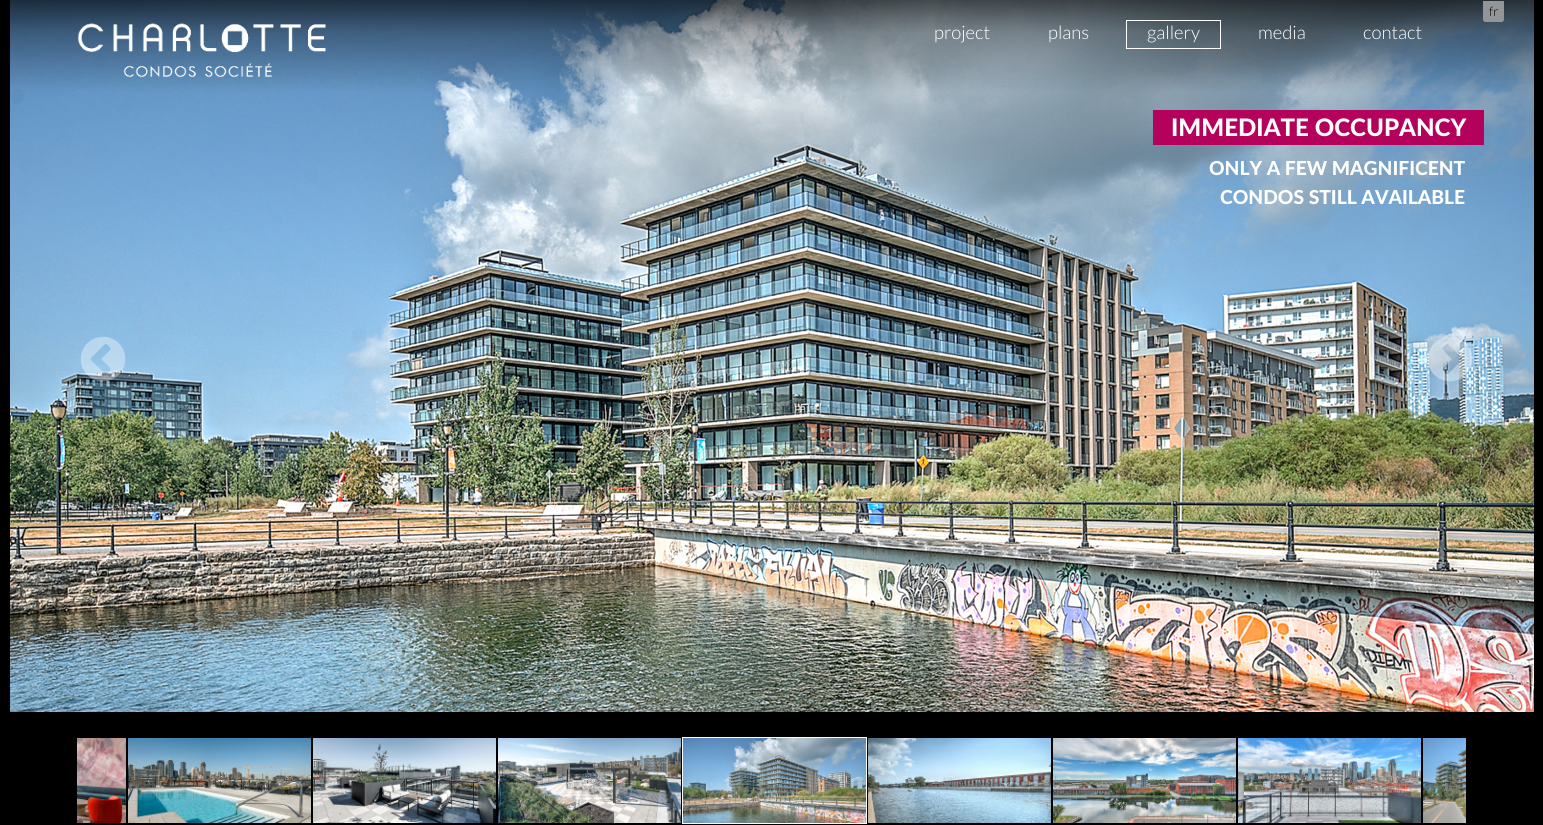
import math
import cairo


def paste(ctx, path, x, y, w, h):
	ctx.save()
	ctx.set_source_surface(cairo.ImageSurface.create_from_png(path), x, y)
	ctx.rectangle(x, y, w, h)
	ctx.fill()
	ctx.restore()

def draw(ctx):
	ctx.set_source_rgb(0, 0, 0)
	ctx.paint()
	paste(ctx, 'media/2.png', 10, 0, 1524, 712)
	ctx.set_source_rgb(0.576, 0.584, 0.596)
	ctx.new_path()
	ctx.move_to(1483, 1)
	ctx.line_to(1504, 1)
	ctx.line_to(1504, 19)
	ctx.curve_to(1504, 20.5, 1502.5, 22, 1501, 22)
	ctx.line_to(1486, 22)
	ctx.curve_to(1484.5, 22, 1483, 20.5, 1483, 19)
	ctx.close_path()
	ctx.fill()
	ctx.set_fill_rule(cairo.FILL_RULE_EVEN_ODD)
	ctx.new_path()
	ctx.move_to(1483, 1)
	ctx.line_to(1504, 1)
	ctx.line_to(1504, 19)
	ctx.curve_to(1504, 20.5, 1502.5, 22, 1501, 22)
	ctx.line_to(1486, 22)
	ctx.curve_to(1484.5, 22, 1483, 20.5, 1483, 19)
	ctx.close_path()
	ctx.move_to(1484, 1)
	ctx.line_to(1503, 1)
	ctx.line_to(1503, 19)
	ctx.curve_to(1503, 20, 1502, 21, 1501, 21)
	ctx.line_to(1486, 21)
	ctx.curve_to(1485, 21, 1484, 20, 1484, 19)
	ctx.close_path()
	ctx.fill()
	ctx.select_font_face('Lato Light')
	ctx.set_font_size(13)
	ctx.set_source_rgb(0, 0, 0)
	ctx.move_to(1489, 16)
	ctx.show_text('fr')
	paste(ctx, 'media/1.png', 77, 23, 249, 55)
	ctx.set_font_size(18.5)
	ctx.set_source_rgb(1, 1, 1)
	ctx.move_to(934, 39)
	ctx.show_text('project')
	ctx.move_to(1048, 39)
	ctx.show_text('plans')
	ctx.rectangle(1126.5, 20.5, 94, 28)
	ctx.set_line_width(1)
	ctx.stroke()
	for x, y, s in [
		(1147, 39, 'gallery'),
		(1258, 39, 'media'),
		(1363, 39, 'contact'),
	]:
		ctx.move_to(x, y)
		ctx.show_text(s)
	paste(ctx, 'media/3.png', 80, 336, 46, 46)
	paste(ctx, 'media/4.png', 1427, 336, 46, 46)
	paste(ctx, 'media/5.png', 77, 738, 49, 85)
	paste(ctx, 'media/6.png', 128, 738, 183, 85)
	paste(ctx, 'media/7.png', 313, 738, 183, 85)
	paste(ctx, 'media/8.png', 498, 738, 183, 85)
	ctx.rectangle(682.5, 737.5, 184, 86)
	ctx.stroke()
	paste(ctx, 'media/9.png', 683, 738, 183, 85)
	paste(ctx, 'media/10.png', 868, 738, 183, 85)
	paste(ctx, 'media/11.png', 1053, 738, 183, 85)
	paste(ctx, 'media/12.png', 1238, 738, 183, 85)
	paste(ctx, 'media/13.png', 1423, 738, 43, 85)
	ctx.set_source_rgb(0.706, 0.004, 0.361)
	ctx.rectangle(1153, 110, 331, 35)
	ctx.fill()
	ctx.select_font_face('Lato Black')
	ctx.set_font_size(24.1)
	ctx.set_source_rgb(1, 1, 1)
	ctx.move_to(1171, 136)
	ctx.show_text('IMMEDIATE OCCUPANCY')
	ctx.set_font_size(19.25)
	ctx.move_to(1209, 175)
	ctx.show_text('ONLY A FEW MAGNIFICENT')
	ctx.move_to(1220, 204)
	ctx.show_text('CONDOS STILL AVAILABLE')


surface = cairo.ImageSurface(cairo.FORMAT_RGB24, 1543, 825)
ctx = cairo.Context(surface)
options = cairo.FontOptions()
options.set_hint_metrics(cairo.HINT_METRICS_OFF)
options.set_hint_style(cairo.HINT_STYLE_NONE)
ctx.set_font_options(options)
ctx.set_miter_limit(4)
draw(ctx)
surface.write_to_png('image.png')
